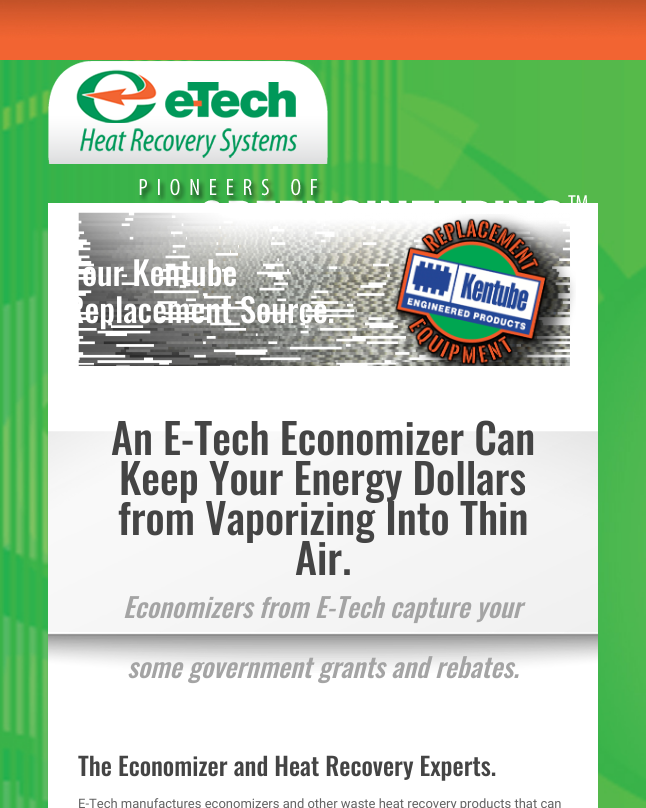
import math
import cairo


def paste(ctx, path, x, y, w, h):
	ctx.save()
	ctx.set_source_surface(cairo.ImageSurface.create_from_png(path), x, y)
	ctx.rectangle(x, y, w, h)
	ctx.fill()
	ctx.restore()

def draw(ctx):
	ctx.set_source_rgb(1, 1, 1)
	ctx.paint()
	paste(ctx, 'media/1.png', 0, 1, 646, 59)
	ctx.set_source_rgb(0.765, 0.322, 0.157)
	ctx.rectangle(0, 0, 646, 1)
	ctx.fill()
	paste(ctx, 'media/2.png', 0, 60, 646, 748)
	paste(ctx, 'media/3.png', 48, 61, 280, 103)
	paste(ctx, 'media/4.png', 139, 179, 448, 24)
	ctx.set_source_rgb(1, 1, 1)
	ctx.rectangle(48, 203, 550, 548)
	ctx.fill()
	paste(ctx, 'media/5.png', 78, 212, 492, 154)
	ctx.select_font_face('Oswald Medium')
	ctx.set_font_size(33)
	ctx.move_to(82, 286)
	ctx.show_text('our Kentube')
	ctx.move_to(66, 323)
	ctx.show_text('Replacement Source.')
	paste(ctx, 'media/6.png', 394, 214, 182, 152)
	paste(ctx, 'media/7.png', 48, 431, 550, 242)
	ctx.set_font_size(42)
	ctx.set_source_rgb(0.267, 0.267, 0.267)
	for x, y, s in [
		(111, 455, 'An E-Tech Economizer Can'),
		(119, 495, 'Keep Your Energy Dollars'),
		(118, 535, 'from Vaporizing Into Thin'),
		(295, 575, 'Air.'),
	]:
		ctx.move_to(x, y)
		ctx.show_text(s)
	ctx.select_font_face('Oswald Medium', cairo.FONT_SLANT_ITALIC)
	ctx.set_font_size(27)
	ctx.set_source_rgb(0.643, 0.643, 0.643)
	ctx.move_to(123, 618)
	ctx.show_text('Economizers from E-Tech capture your')
	ctx.move_to(127, 678)
	ctx.show_text('some government grants and rebates.')
	ctx.set_source_rgb(1, 1, 1)
	ctx.rectangle(48, 751, 550, 57)
	ctx.fill()
	ctx.select_font_face('Oswald Medium')
	ctx.set_font_size(25)
	ctx.set_source_rgb(0.267, 0.267, 0.267)
	ctx.move_to(78, 776)
	ctx.show_text('The Economizer and Heat Recovery Experts.')
	ctx.select_font_face('Roboto')
	ctx.set_font_size(13)
	ctx.set_source_rgb(0.384, 0.384, 0.384)
	ctx.move_to(78, 808)
	ctx.show_text('E-Tech manufactures economizers and other waste heat recovery products that can')


surface = cairo.ImageSurface(cairo.FORMAT_RGB24, 646, 808)
ctx = cairo.Context(surface)
options = cairo.FontOptions()
options.set_hint_metrics(cairo.HINT_METRICS_OFF)
options.set_hint_style(cairo.HINT_STYLE_NONE)
ctx.set_font_options(options)
ctx.set_miter_limit(4)
draw(ctx)
surface.write_to_png('image.png')
